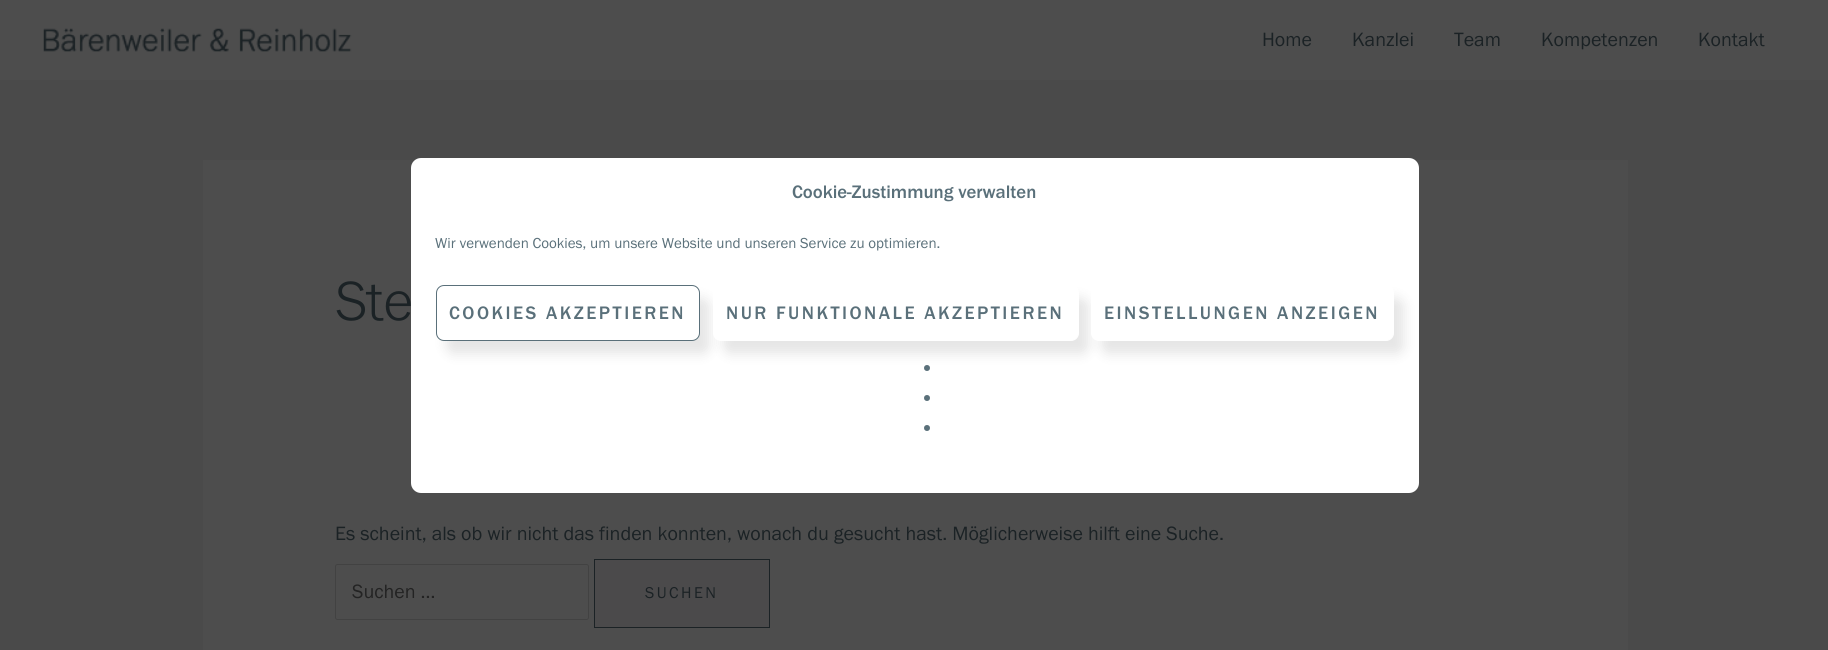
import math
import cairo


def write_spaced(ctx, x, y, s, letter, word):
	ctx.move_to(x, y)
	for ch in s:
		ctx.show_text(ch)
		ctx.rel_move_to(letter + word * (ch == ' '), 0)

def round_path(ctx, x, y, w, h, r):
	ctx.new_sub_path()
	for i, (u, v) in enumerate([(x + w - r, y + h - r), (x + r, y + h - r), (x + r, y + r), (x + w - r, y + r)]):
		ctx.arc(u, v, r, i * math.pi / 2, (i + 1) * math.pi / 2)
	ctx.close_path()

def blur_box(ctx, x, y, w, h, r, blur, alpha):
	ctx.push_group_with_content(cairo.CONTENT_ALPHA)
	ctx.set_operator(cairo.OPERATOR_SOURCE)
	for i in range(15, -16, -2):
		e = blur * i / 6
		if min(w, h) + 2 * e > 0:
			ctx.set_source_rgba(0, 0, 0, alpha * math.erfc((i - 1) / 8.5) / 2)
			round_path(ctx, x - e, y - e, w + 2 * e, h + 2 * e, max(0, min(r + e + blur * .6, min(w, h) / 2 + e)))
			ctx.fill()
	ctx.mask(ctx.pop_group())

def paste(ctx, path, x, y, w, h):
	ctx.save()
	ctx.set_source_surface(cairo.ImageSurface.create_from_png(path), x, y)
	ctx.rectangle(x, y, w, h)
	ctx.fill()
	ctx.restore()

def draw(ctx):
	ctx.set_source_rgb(0.29, 0.29, 0.29)
	ctx.paint()
	ctx.set_source_rgb(0.302, 0.302, 0.302)
	ctx.rectangle(0, 0, 1828, 80)
	ctx.fill()
	paste(ctx, 'media/1.png', 43, 28, 309, 24)
	ctx.select_font_face('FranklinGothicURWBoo')
	ctx.set_font_size(20)
	ctx.set_source_rgb(0.106, 0.133, 0.145)
	for x, y, s in [
		(1262, 46, 'Home'),
		(1352, 46, 'Kanzlei'),
		(1454, 46, 'Team'),
		(1541, 46, 'Kompetenzen'),
		(1698, 46, 'Kontakt'),
	]:
		ctx.move_to(x, y)
		ctx.show_text(s)
	ctx.set_source_rgb(0.302, 0.302, 0.302)
	ctx.rectangle(203, 160, 1425, 490)
	ctx.fill()
	ctx.select_font_face('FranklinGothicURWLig')
	ctx.set_font_size(57)
	ctx.set_source_rgb(0.106, 0.133, 0.145)
	ctx.move_to(335, 320)
	ctx.show_text('Ste')
	ctx.select_font_face('FranklinGothicURWBoo')
	ctx.set_font_size(20)
	ctx.move_to(335, 540)
	ctx.show_text('Es scheint, als ob wir nicht das finden konnten, wonach du gesucht hast. Möglicherweise hilft eine Suche.')
	round_path(ctx, 335.5, 564.5, 253, 55, 2)
	ctx.set_source_rgb(0.259, 0.259, 0.259)
	ctx.set_line_width(1)
	ctx.stroke()
	ctx.set_source_rgb(0.137, 0.137, 0.137)
	ctx.move_to(352, 598)
	ctx.show_text('Suchen …')
	ctx.set_source_rgb(0.294, 0.29, 0.294)
	ctx.rectangle(594.5, 559.5, 175, 68)
	ctx.fill_preserve()
	ctx.set_source_rgb(0.106, 0.133, 0.145)
	ctx.stroke()
	ctx.set_font_size(16.25)
	write_spaced(ctx, 645, 598, 'SUCHEN', 2.5, 0)
	ctx.set_source_rgb(1, 1, 1)
	round_path(ctx, 411, 158, 1008, 335, 10)
	ctx.fill()
	ctx.select_font_face('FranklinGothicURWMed')
	ctx.set_font_size(18.75)
	ctx.set_source_rgb(0.353, 0.439, 0.478)
	ctx.move_to(792, 198)
	ctx.show_text('Cookie-Zustimmung verwalten')
	ctx.select_font_face('FranklinGothicURWBoo')
	ctx.set_font_size(15)
	ctx.move_to(435, 248)
	ctx.show_text('Wir verwenden Cookies, um unsere Website und unseren Service zu optimieren.')
	ctx.set_source_rgb(0, 0, 0)
	blur_box(ctx, 446, 298, 264, 56, 8, 6, 0.1)
	ctx.set_source_rgb(1, 1, 1)
	round_path(ctx, 436.5, 285.5, 263, 55, 7.5)
	ctx.fill_preserve()
	ctx.set_source_rgb(0.353, 0.439, 0.478)
	ctx.stroke()
	ctx.select_font_face('FranklinGothicURWMed')
	ctx.set_font_size(18.75)
	write_spaced(ctx, 449, 319, 'COOKIES AKZEPTIEREN', 2.5, 0)
	ctx.set_source_rgb(0, 0, 0)
	blur_box(ctx, 723, 298, 366, 56, 8, 6, 0.1)
	ctx.set_source_rgb(1, 1, 1)
	round_path(ctx, 713.5, 285.5, 365, 55, 7.5)
	ctx.fill_preserve()
	ctx.stroke()
	ctx.set_source_rgb(0.353, 0.439, 0.478)
	write_spaced(ctx, 726, 319, 'NUR FUNKTIONALE AKZEPTIEREN', 2.5, 0)
	ctx.set_source_rgb(0, 0, 0)
	blur_box(ctx, 1101, 298, 303, 56, 8, 6, 0.1)
	ctx.set_source_rgb(1, 1, 1)
	round_path(ctx, 1091.5, 285.5, 302, 55, 7.5)
	ctx.fill_preserve()
	ctx.stroke()
	ctx.set_source_rgb(0.353, 0.439, 0.478)
	write_spaced(ctx, 1104, 319, 'EINSTELLUNGEN ANZEIGEN', 2.5, 0)
	ctx.new_path()
	ctx.arc(927, 368, 3, 0, 2 * math.pi)
	ctx.fill()
	ctx.arc(927, 398, 3, 0, 2 * math.pi)
	ctx.fill()
	ctx.arc(927, 428, 3, 0, 2 * math.pi)
	ctx.fill()


surface = cairo.ImageSurface(cairo.FORMAT_RGB24, 1828, 650)
ctx = cairo.Context(surface)
options = cairo.FontOptions()
options.set_hint_metrics(cairo.HINT_METRICS_OFF)
options.set_hint_style(cairo.HINT_STYLE_NONE)
ctx.set_font_options(options)
ctx.set_miter_limit(4)
draw(ctx)
surface.write_to_png('image.png')
